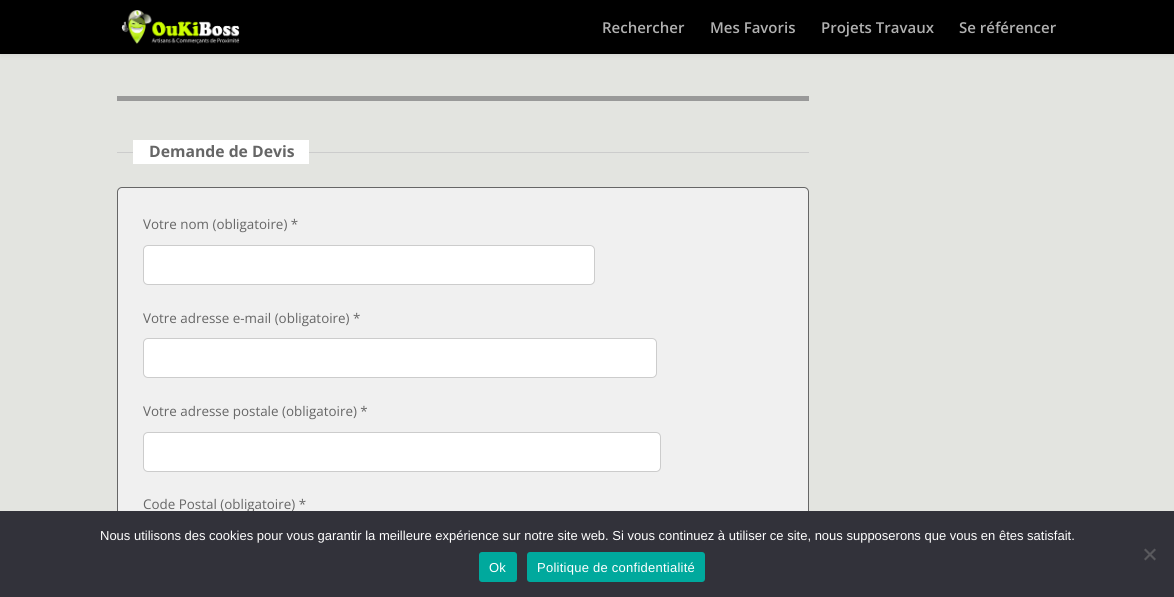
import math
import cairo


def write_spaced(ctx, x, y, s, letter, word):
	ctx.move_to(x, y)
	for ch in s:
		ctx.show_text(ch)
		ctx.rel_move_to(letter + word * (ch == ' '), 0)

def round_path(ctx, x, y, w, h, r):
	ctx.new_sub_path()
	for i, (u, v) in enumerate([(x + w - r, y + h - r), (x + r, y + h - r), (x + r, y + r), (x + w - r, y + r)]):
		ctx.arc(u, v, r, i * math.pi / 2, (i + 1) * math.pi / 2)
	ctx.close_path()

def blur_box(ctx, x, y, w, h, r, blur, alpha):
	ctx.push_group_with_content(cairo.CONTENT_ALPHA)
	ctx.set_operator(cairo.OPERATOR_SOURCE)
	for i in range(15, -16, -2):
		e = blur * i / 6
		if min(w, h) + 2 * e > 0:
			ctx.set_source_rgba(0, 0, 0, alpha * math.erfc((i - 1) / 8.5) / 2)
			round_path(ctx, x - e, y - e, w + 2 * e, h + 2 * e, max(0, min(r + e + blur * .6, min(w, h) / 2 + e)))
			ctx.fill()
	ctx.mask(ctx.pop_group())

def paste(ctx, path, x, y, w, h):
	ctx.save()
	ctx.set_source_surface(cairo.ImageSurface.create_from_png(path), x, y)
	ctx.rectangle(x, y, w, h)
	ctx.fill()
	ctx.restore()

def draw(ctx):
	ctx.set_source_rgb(0.89, 0.894, 0.878)
	ctx.paint()
	ctx.set_source_rgb(0, 0, 0)
	blur_box(ctx, 0, 0, 1174, 54, 0, 3.5, 0.1)
	ctx.set_source_rgb(0, 0, 0)
	ctx.rectangle(0, 0, 1174, 54)
	ctx.fill()
	paste(ctx, 'media/1.png', 121, 10, 119, 34)
	ctx.select_font_face('Open Sans SemiBold')
	ctx.set_font_size(15)
	ctx.set_source_rgb(0.694, 0.694, 0.694)
	for x, y, s in [
		(602, 33, 'Rechercher'),
		(710, 33, 'Mes Favoris'),
		(821, 33, 'Projets Travaux'),
		(959, 33, 'Se référencer'),
	]:
		ctx.move_to(x, y)
		ctx.show_text(s)
	ctx.set_source_rgb(0.6, 0.6, 0.6)
	ctx.rectangle(117, 96, 692, 5)
	ctx.fill()
	ctx.set_source_rgb(0.8, 0.8, 0.8)
	ctx.rectangle(117, 152, 692, 1)
	ctx.fill()
	ctx.set_source_rgb(1, 1, 1)
	ctx.rectangle(133, 140, 176, 24)
	ctx.fill()
	ctx.select_font_face('Open Sans', cairo.FONT_SLANT_NORMAL, cairo.FONT_WEIGHT_BOLD)
	ctx.set_font_size(15.75)
	ctx.set_source_rgb(0.4, 0.4, 0.4)
	ctx.move_to(149, 157)
	ctx.show_text('Demande de Devis')
	ctx.set_source_rgb(0.941, 0.941, 0.941)
	round_path(ctx, 117.5, 187.5, 691, 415, 4.5)
	ctx.fill_preserve()
	ctx.set_source_rgb(0.4, 0.4, 0.4)
	ctx.set_line_width(1)
	ctx.stroke()
	ctx.select_font_face('Open Sans')
	ctx.set_font_size(13.4)
	ctx.move_to(143, 229)
	ctx.show_text('Votre nom (obligatoire) *')
	ctx.set_source_rgb(1, 1, 1)
	round_path(ctx, 143.5, 245.5, 451, 39, 4.5)
	ctx.fill_preserve()
	ctx.set_source_rgb(0.8, 0.8, 0.8)
	ctx.stroke()
	ctx.set_source_rgb(0.4, 0.4, 0.4)
	ctx.move_to(143, 323)
	ctx.show_text('Votre adresse e-mail (obligatoire) *')
	ctx.set_source_rgb(1, 1, 1)
	round_path(ctx, 143.5, 338.5, 513, 39, 4.5)
	ctx.fill_preserve()
	ctx.set_source_rgb(0.8, 0.8, 0.8)
	ctx.stroke()
	ctx.set_source_rgb(0.4, 0.4, 0.4)
	ctx.move_to(143, 416)
	ctx.show_text('Votre adresse postale (obligatoire) *')
	ctx.set_source_rgb(1, 1, 1)
	round_path(ctx, 143.5, 432.5, 517, 39, 4.5)
	ctx.fill_preserve()
	ctx.set_source_rgb(0.8, 0.8, 0.8)
	ctx.stroke()
	ctx.set_source_rgb(0.4, 0.4, 0.4)
	ctx.move_to(143, 509)
	ctx.show_text('Code Postal (obligatoire) *')
	ctx.set_source_rgb(0.196, 0.196, 0.227)
	ctx.rectangle(0, 511, 1174, 86)
	ctx.fill()
	ctx.select_font_face('Liberation Sans')
	ctx.set_font_size(13)
	ctx.set_source_rgb(1, 1, 1)
	ctx.move_to(100, 540)
	ctx.show_text('Nous utilisons des cookies pour vous garantir la meilleure expérience sur notre site web. Si vous continuez à utiliser ce site, nous supposerons que vous en êtes satisfait.')
	ctx.set_source_rgb(0.349, 0.349, 0.365)
	ctx.new_path()
	ctx.move_to(1154.5, 548.5)
	ctx.line_to(1156, 550)
	ctx.line_to(1145.5, 560.5)
	ctx.line_to(1144, 559)
	ctx.close_path()
	ctx.fill()
	ctx.new_path()
	ctx.move_to(1144, 550)
	ctx.line_to(1145.5, 548.5)
	ctx.line_to(1156, 559)
	ctx.line_to(1154.5, 560.5)
	ctx.close_path()
	ctx.fill()
	ctx.set_source_rgb(0, 0.663, 0.616)
	round_path(ctx, 479, 552, 38, 30, 3)
	ctx.fill()
	ctx.set_source_rgb(1, 1, 1)
	write_spaced(ctx, 489, 572, 'Ok', 0.25, 0)
	ctx.set_source_rgb(0, 0.663, 0.616)
	round_path(ctx, 527, 552, 178, 30, 3)
	ctx.fill()
	ctx.set_source_rgb(1, 1, 1)
	write_spaced(ctx, 537, 572, 'Politique de confidentialité', 0.25, 0)


surface = cairo.ImageSurface(cairo.FORMAT_RGB24, 1174, 597)
ctx = cairo.Context(surface)
options = cairo.FontOptions()
options.set_hint_metrics(cairo.HINT_METRICS_OFF)
options.set_hint_style(cairo.HINT_STYLE_NONE)
ctx.set_font_options(options)
ctx.set_miter_limit(4)
draw(ctx)
surface.write_to_png('image.png')
